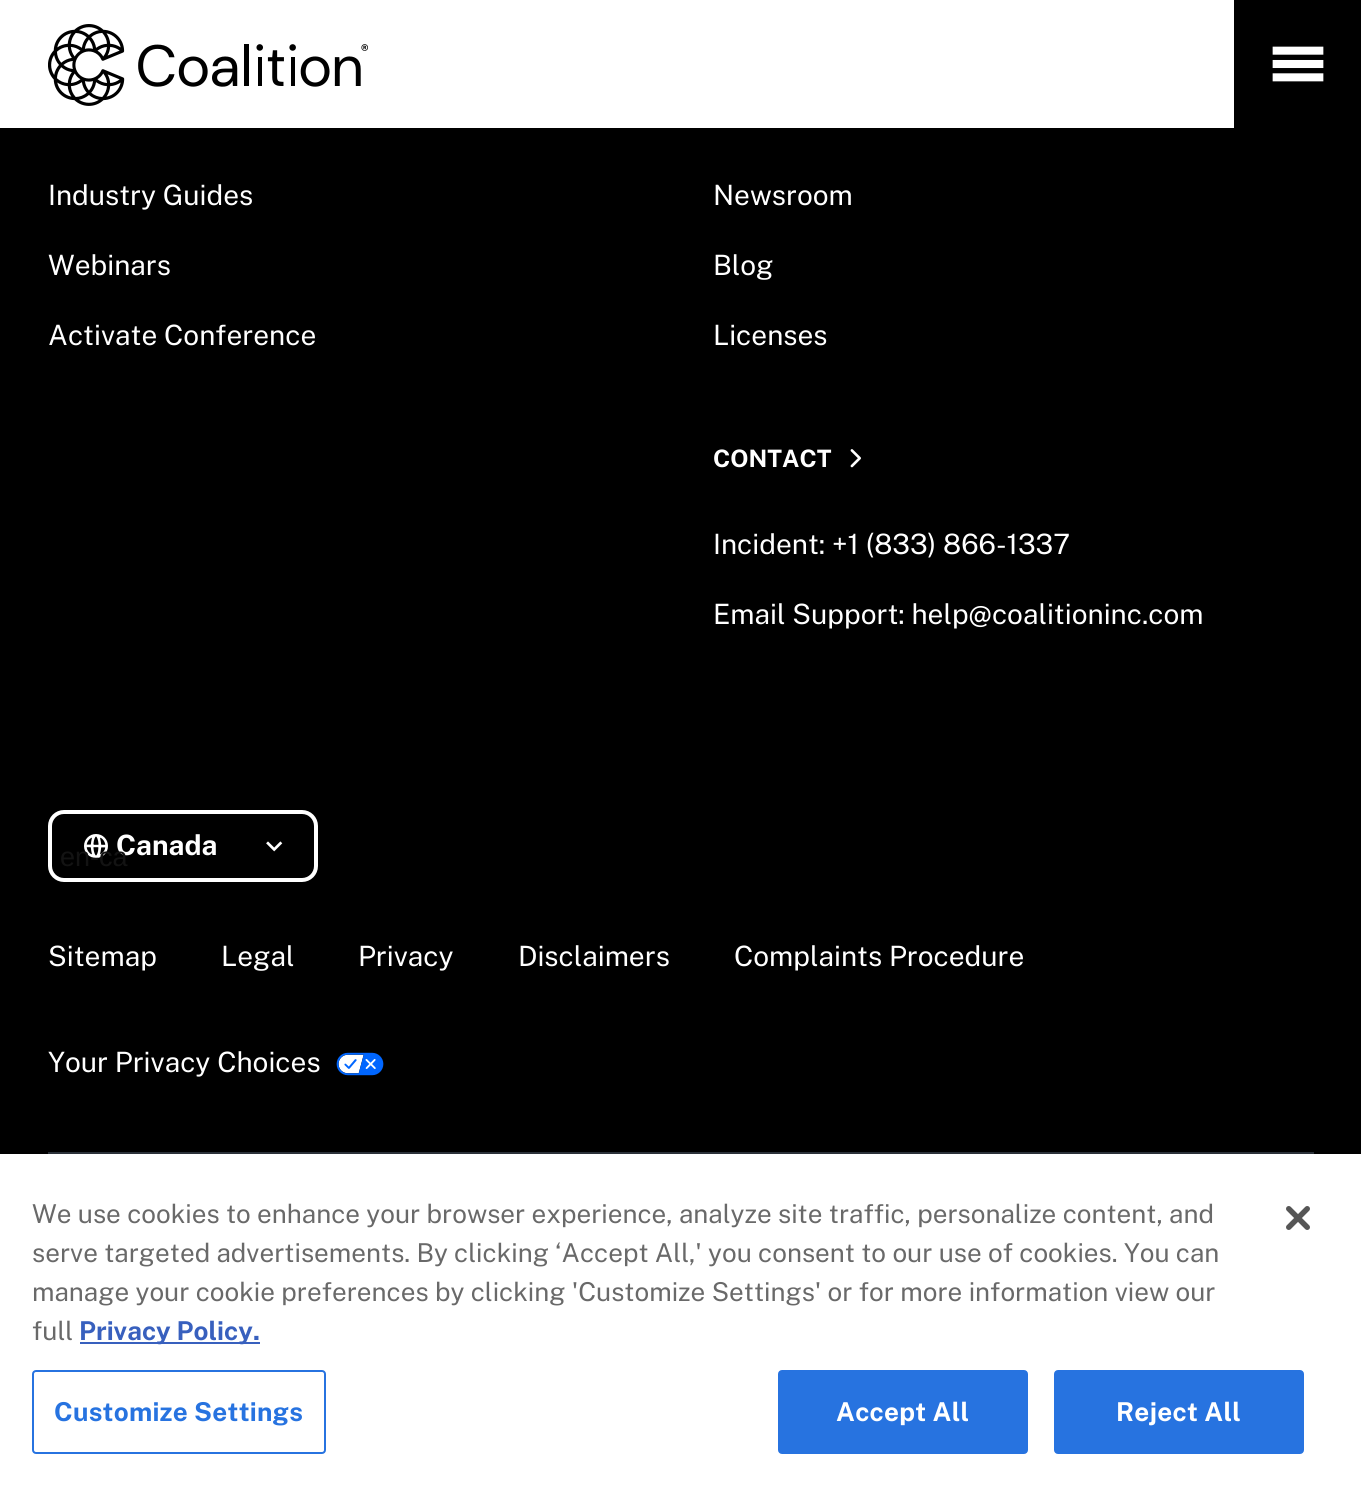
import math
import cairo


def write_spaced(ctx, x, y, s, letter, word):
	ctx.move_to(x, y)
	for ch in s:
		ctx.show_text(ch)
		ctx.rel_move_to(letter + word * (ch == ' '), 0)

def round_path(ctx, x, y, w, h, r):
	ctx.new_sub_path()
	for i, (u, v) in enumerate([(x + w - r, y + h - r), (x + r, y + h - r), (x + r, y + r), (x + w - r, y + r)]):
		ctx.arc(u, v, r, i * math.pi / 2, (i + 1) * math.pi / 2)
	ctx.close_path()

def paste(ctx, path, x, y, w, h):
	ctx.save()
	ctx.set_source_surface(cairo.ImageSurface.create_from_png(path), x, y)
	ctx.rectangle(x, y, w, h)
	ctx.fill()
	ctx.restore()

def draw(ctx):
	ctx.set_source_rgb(0, 0, 0)
	ctx.paint()
	ctx.set_source_rgb(1, 1, 1)
	ctx.rectangle(0, 0, 1234, 128)
	ctx.fill()
	paste(ctx, 'media/1.png', 48, 24, 320, 82)
	paste(ctx, 'media/2.png', 1272, 46, 52, 36)
	ctx.select_font_face('Public Sans')
	ctx.set_font_size(28)
	for x, y, s in [
		(48, 205, 'Industry Guides'),
		(48, 275, 'Webinars'),
		(48, 345, 'Activate Conference'),
		(713, 205, 'Newsroom'),
		(713, 275, 'Blog'),
		(713, 345, 'Licenses'),
	]:
		ctx.move_to(x, y)
		ctx.show_text(s)
	ctx.select_font_face('Public Sans', cairo.FONT_SLANT_NORMAL, cairo.FONT_WEIGHT_BOLD)
	ctx.set_font_size(24)
	ctx.move_to(713, 467)
	ctx.show_text('CONTACT')
	paste(ctx, 'media/3.png', 850, 449, 11, 19)
	ctx.select_font_face('Public Sans')
	ctx.set_font_size(28)
	ctx.move_to(713, 554)
	ctx.show_text('Incident: +1 (833) 866-1337')
	ctx.move_to(713, 624)
	ctx.show_text('Email Support: help@coalitioninc.com')
	round_path(ctx, 50, 812, 266, 68, 14)
	ctx.set_line_width(4)
	ctx.stroke()
	paste(ctx, 'media/4.png', 84, 834, 24, 24)
	ctx.select_font_face('Public Sans', cairo.FONT_SLANT_NORMAL, cairo.FONT_WEIGHT_BOLD)
	ctx.move_to(116, 855)
	ctx.show_text('Canada')
	paste(ctx, 'media/5.png', 266, 841, 17, 11)
	ctx.select_font_face('Liberation Sans')
	ctx.set_font_size(27)
	ctx.set_source_rgb(0.078, 0.078, 0.078)
	ctx.move_to(60, 866)
	ctx.show_text('en-ca')
	ctx.select_font_face('Public Sans')
	ctx.set_font_size(28)
	ctx.set_source_rgb(1, 1, 1)
	for x, y, s in [
		(48, 966, 'Sitemap'),
		(221, 966, 'Legal'),
		(358, 966, 'Privacy'),
		(518, 966, 'Disclaimers'),
		(734, 966, 'Complaints Procedure'),
		(48, 1072, 'Your Privacy Choices'),
	]:
		ctx.move_to(x, y)
		ctx.show_text(s)
	paste(ctx, 'media/6.png', 336, 1052, 48, 24)
	ctx.set_source_rgb(0.169, 0.192, 0.224)
	ctx.rectangle(48, 1152, 1266, 2)
	ctx.fill()
	ctx.set_source_rgb(1, 1, 1)
	ctx.rectangle(0, 1154, 1361, 340)
	ctx.fill()
	ctx.set_font_size(26)
	ctx.set_source_rgb(0.412, 0.412, 0.412)
	for x, y, s in [
		(32, 1223, 'We use cookies to enhance your browser experience, analyze site traffic, personalize content, and'),
		(32, 1262, 'serve targeted advertisements. By clicking ‘Accept All,\' you consent to our use of cookies. You can'),
		(32, 1301, 'manage your cookie preferences by clicking \'Customize Settings\' or for more information view our'),
		(32, 1340, 'full'),
	]:
		ctx.move_to(x, y)
		ctx.show_text(s)
	ctx.set_source_rgb(0.22, 0.376, 0.745)
	ctx.rectangle(80, 1342, 180, 2)
	ctx.fill()
	ctx.select_font_face('Public Sans', cairo.FONT_SLANT_NORMAL, cairo.FONT_WEIGHT_BOLD)
	ctx.move_to(79, 1340)
	ctx.show_text('Privacy Policy.')
	round_path(ctx, 33, 1371, 292, 82, 3)
	ctx.set_source_rgb(0.153, 0.451, 0.878)
	ctx.set_line_width(2)
	ctx.stroke()
	write_spaced(ctx, 54, 1421, 'Customize Settings', 0.25, 0)
	round_path(ctx, 779, 1371, 248, 82, 3)
	ctx.fill_preserve()
	ctx.stroke()
	ctx.set_source_rgb(1, 1, 1)
	write_spaced(ctx, 836, 1421, 'Accept All', 0.25, 0)
	ctx.set_source_rgb(0.153, 0.451, 0.878)
	round_path(ctx, 1055, 1371, 248, 82, 3)
	ctx.fill_preserve()
	ctx.stroke()
	ctx.set_source_rgb(1, 1, 1)
	write_spaced(ctx, 1116, 1421, 'Reject All', 0.25, 0)
	paste(ctx, 'media/7.png', 1286, 1206, 24, 24)


surface = cairo.ImageSurface(cairo.FORMAT_RGB24, 1361, 1494)
ctx = cairo.Context(surface)
options = cairo.FontOptions()
options.set_hint_metrics(cairo.HINT_METRICS_OFF)
options.set_hint_style(cairo.HINT_STYLE_NONE)
ctx.set_font_options(options)
ctx.set_miter_limit(4)
draw(ctx)
surface.write_to_png('image.png')
